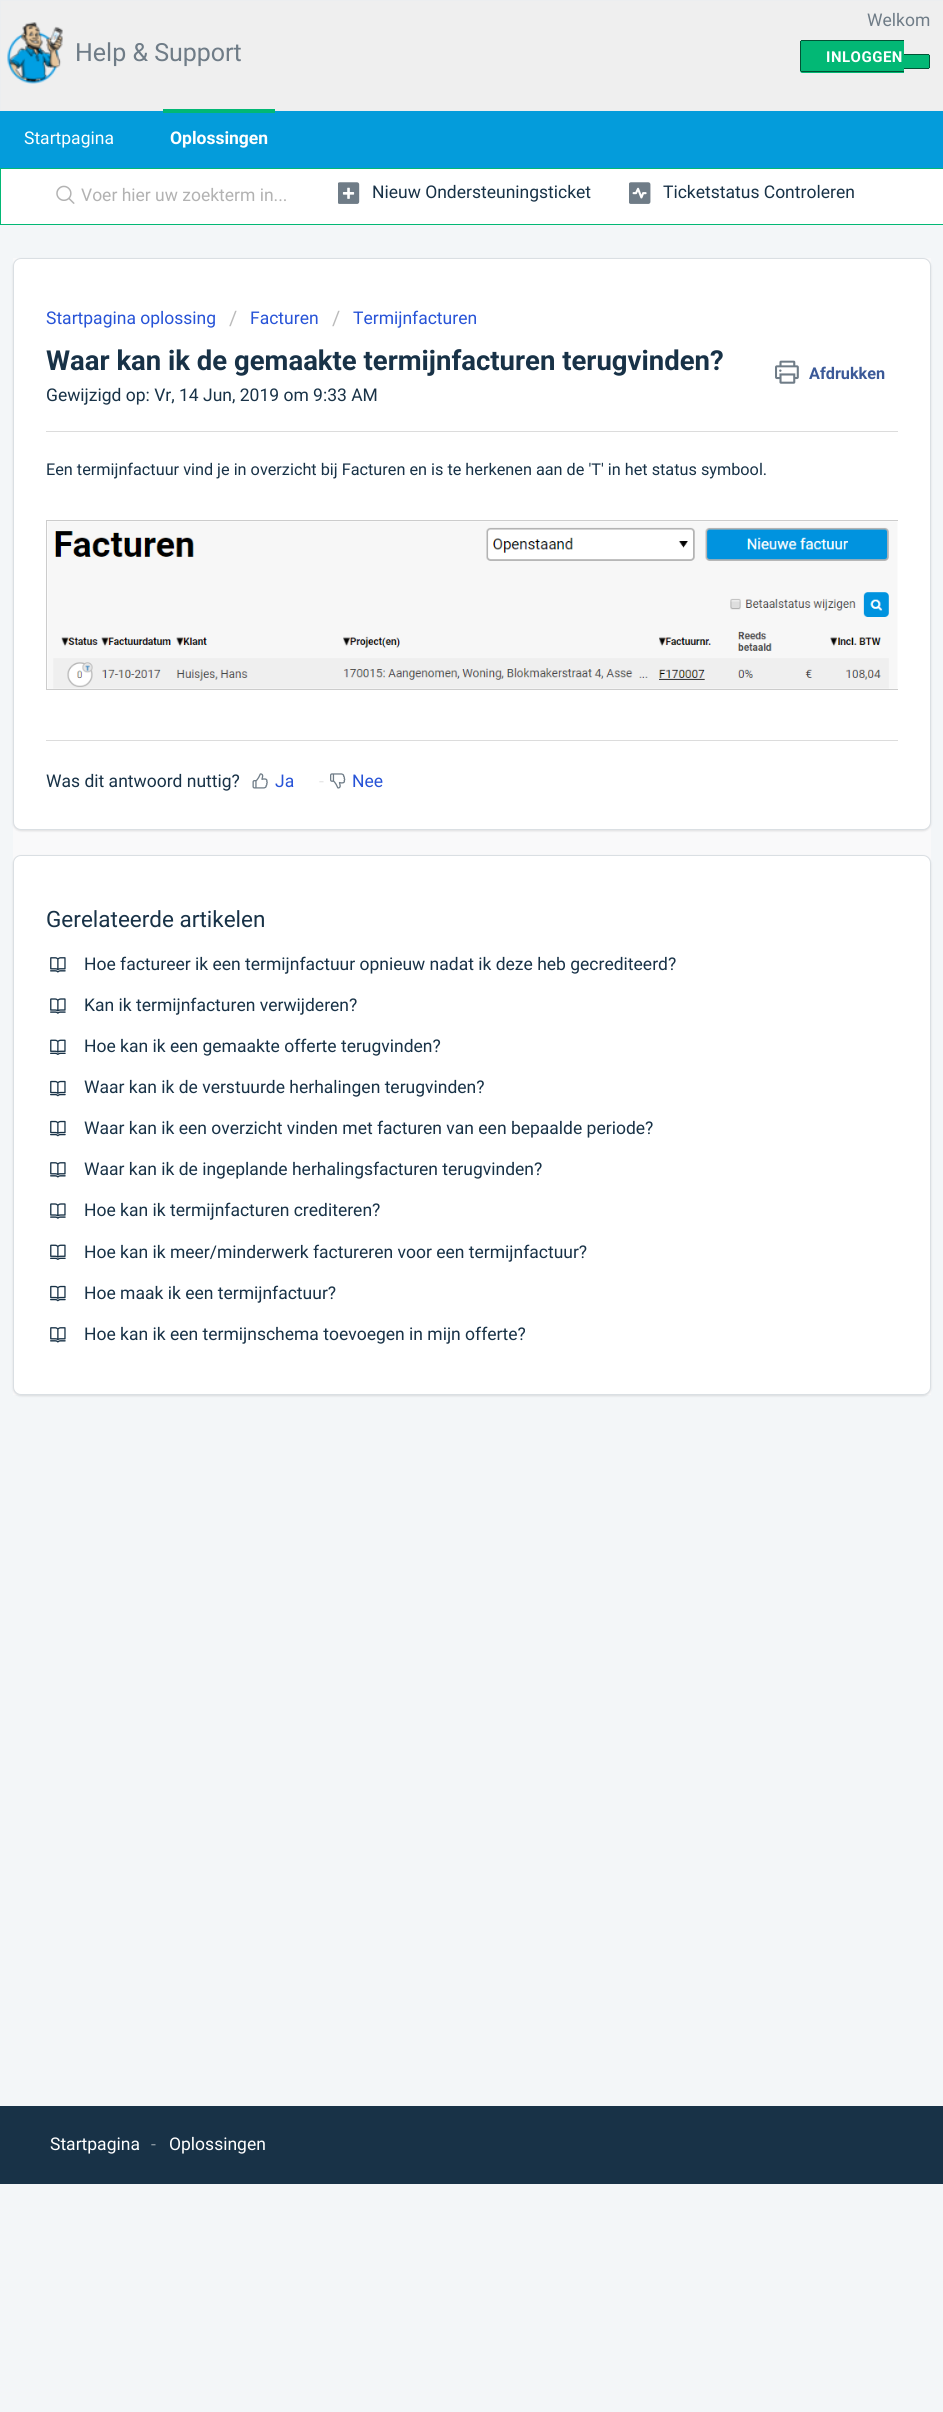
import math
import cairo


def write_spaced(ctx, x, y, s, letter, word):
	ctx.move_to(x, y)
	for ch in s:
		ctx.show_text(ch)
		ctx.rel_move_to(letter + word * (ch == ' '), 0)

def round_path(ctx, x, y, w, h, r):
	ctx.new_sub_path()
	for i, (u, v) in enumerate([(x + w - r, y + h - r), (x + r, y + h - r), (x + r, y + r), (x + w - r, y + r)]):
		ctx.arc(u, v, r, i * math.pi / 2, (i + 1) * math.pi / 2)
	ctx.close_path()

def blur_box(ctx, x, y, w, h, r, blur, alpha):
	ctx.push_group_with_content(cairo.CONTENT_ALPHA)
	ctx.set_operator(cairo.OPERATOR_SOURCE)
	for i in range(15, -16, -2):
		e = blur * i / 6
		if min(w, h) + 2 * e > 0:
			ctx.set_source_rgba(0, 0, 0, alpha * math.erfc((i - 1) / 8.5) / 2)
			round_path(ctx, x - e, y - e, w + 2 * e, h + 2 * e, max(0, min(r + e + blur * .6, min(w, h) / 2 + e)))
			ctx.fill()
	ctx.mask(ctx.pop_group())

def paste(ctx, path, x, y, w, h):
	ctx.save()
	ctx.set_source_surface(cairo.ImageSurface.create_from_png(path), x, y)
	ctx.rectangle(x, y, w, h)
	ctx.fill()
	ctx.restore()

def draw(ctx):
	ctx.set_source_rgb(0.953, 0.961, 0.969)
	ctx.paint()
	ctx.set_source_rgb(0.937, 0.937, 0.937)
	ctx.rectangle(0.5, 0.5, 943, 110)
	ctx.fill_preserve()
	ctx.set_source_rgb(0.922, 0.933, 0.941)
	ctx.set_line_width(1)
	ctx.stroke()
	paste(ctx, 'media/1.png', 7, 22, 56, 62)
	ctx.select_font_face('Roboto')
	ctx.set_font_size(25)
	ctx.set_source_rgb(0.435, 0.486, 0.529)
	ctx.move_to(75, 61)
	ctx.show_text('Help & Support')
	ctx.set_font_size(17.5)
	ctx.move_to(867, 26)
	ctx.show_text('Welkom')
	ctx.set_source_rgb(0.008, 0.722, 0.459)
	ctx.new_path()
	ctx.move_to(802.5, 40)
	ctx.line_to(904, 40)
	ctx.line_to(904, 73)
	ctx.line_to(802.5, 73)
	ctx.curve_to(801, 73, 800, 72, 800, 70.5)
	ctx.line_to(800, 42.5)
	ctx.curve_to(800, 41, 801, 40, 802.5, 40)
	ctx.close_path()
	ctx.fill()
	ctx.select_font_face('Roboto', cairo.FONT_SLANT_NORMAL, cairo.FONT_WEIGHT_BOLD)
	ctx.set_font_size(15)
	ctx.set_source_rgb(1, 1, 1)
	write_spaced(ctx, 826, 62, 'INLOGGEN', 0.5, 0)
	ctx.set_source_rgb(0.004, 0.325, 0.208)
	ctx.rectangle(801, 40, 103, 1)
	ctx.rectangle(801, 71, 103, 1)
	ctx.rectangle(800, 41, 1, 30)
	ctx.fill()
	ctx.set_source_rgb(0.008, 0.722, 0.459)
	ctx.new_path()
	ctx.move_to(904, 54)
	ctx.line_to(927.5, 54)
	ctx.curve_to(929, 54, 930, 55, 930, 56.5)
	ctx.line_to(930, 66.5)
	ctx.curve_to(930, 68, 929, 69, 927.5, 69)
	ctx.line_to(904, 69)
	ctx.close_path()
	ctx.fill()
	ctx.set_source_rgb(0.004, 0.325, 0.208)
	ctx.rectangle(904, 54, 25, 1)
	ctx.rectangle(929, 55, 1, 13)
	ctx.rectangle(904, 68, 25, 1)
	ctx.fill()
	ctx.set_source_rgb(0.016, 0.612, 0.859)
	ctx.rectangle(0, 111, 943, 57)
	ctx.fill()
	ctx.select_font_face('Roboto')
	ctx.set_font_size(17.5)
	ctx.set_source_rgb(1, 1, 1)
	ctx.move_to(24, 144)
	ctx.show_text('Startpagina')
	ctx.set_source_rgb(0.008, 0.722, 0.459)
	ctx.rectangle(163, 109, 112, 4)
	ctx.fill()
	ctx.select_font_face('Roboto', cairo.FONT_SLANT_NORMAL, cairo.FONT_WEIGHT_BOLD)
	ctx.set_source_rgb(1, 1, 1)
	ctx.move_to(170, 144)
	ctx.show_text('Oplossingen')
	ctx.rectangle(0.5, 168.5, 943, 56)
	ctx.fill_preserve()
	ctx.set_source_rgb(0.008, 0.722, 0.459)
	ctx.stroke()
	paste(ctx, 'media/2.png', 56, 185, 19, 19)
	ctx.select_font_face('Roboto')
	ctx.set_source_rgb(0.698, 0.698, 0.698)
	ctx.move_to(81, 201)
	ctx.show_text('Voer hier uw zoekterm in...')
	paste(ctx, 'media/3.png', 338, 182, 22, 22)
	ctx.set_source_rgb(0.094, 0.196, 0.278)
	ctx.move_to(372, 198)
	ctx.show_text('Nieuw Ondersteuningsticket')
	paste(ctx, 'media/4.png', 629, 182, 22, 22)
	ctx.move_to(663, 198)
	ctx.show_text('Ticketstatus Controleren')
	ctx.set_source_rgb(0.973, 0.976, 0.98)
	ctx.rectangle(13, 258, 918, 1137)
	ctx.fill()
	ctx.set_source_rgb(0.247, 0.247, 0.267)
	blur_box(ctx, 13, 259, 918, 572, 8, 1, 0.15)
	ctx.set_source_rgb(1, 1, 1)
	round_path(ctx, 13.5, 258.5, 917, 571, 7.5)
	ctx.fill_preserve()
	ctx.set_source_rgb(0.855, 0.875, 0.89)
	ctx.stroke()
	ctx.set_source_rgb(0.153, 0.325, 0.843)
	ctx.move_to(46, 324)
	ctx.show_text('Startpagina oplossing')
	ctx.set_font_size(20)
	ctx.set_source_rgb(0.733, 0.733, 0.733)
	ctx.move_to(229, 325)
	ctx.show_text('/')
	ctx.set_font_size(17.5)
	ctx.set_source_rgb(0.153, 0.325, 0.843)
	ctx.move_to(250, 324)
	ctx.show_text('Facturen')
	ctx.set_font_size(20)
	ctx.set_source_rgb(0.733, 0.733, 0.733)
	ctx.move_to(332, 325)
	ctx.show_text('/')
	ctx.set_font_size(17.5)
	ctx.set_source_rgb(0.153, 0.325, 0.843)
	ctx.move_to(353, 324)
	ctx.show_text('Termijnfacturen')
	ctx.select_font_face('Roboto', cairo.FONT_SLANT_NORMAL, cairo.FONT_WEIGHT_BOLD)
	ctx.set_font_size(27.5)
	ctx.set_source_rgb(0.094, 0.196, 0.278)
	ctx.move_to(46, 370)
	ctx.show_text('Waar kan ik de gemaakte termijnfacturen terugvinden?')
	paste(ctx, 'media/5.png', 775, 360, 24, 24)
	ctx.set_font_size(16.25)
	ctx.set_source_rgb(0.231, 0.349, 0.596)
	ctx.move_to(809, 379)
	ctx.show_text('Afdrukken')
	ctx.select_font_face('Roboto')
	ctx.set_font_size(17.5)
	ctx.set_source_rgb(0.094, 0.196, 0.278)
	ctx.move_to(46, 401)
	ctx.show_text('Gewijzigd op: Vr, 14 Jun, 2019 om 9:33 AM')
	ctx.set_source_rgb(0.863, 0.863, 0.863)
	ctx.rectangle(46, 431, 852, 1)
	ctx.fill()
	ctx.set_font_size(16.25)
	ctx.set_source_rgb(0.094, 0.196, 0.278)
	ctx.move_to(46, 475)
	ctx.show_text('Een termijnfactuur vind je in overzicht bij Facturen en is te herkenen aan de \'T\' in het status symbool.')
	ctx.save()
	ctx.rectangle(46, 454, 852, 265)
	ctx.clip()
	ctx.rectangle(46.5, 520.5, 853, 169)
	ctx.set_source_rgb(0.8, 0.8, 0.8)
	ctx.stroke()
	ctx.restore()
	paste(ctx, 'media/6.png', 47, 521, 851, 168)
	ctx.set_source_rgb(0.863, 0.863, 0.863)
	ctx.rectangle(46, 740, 852, 1)
	ctx.fill()
	ctx.set_font_size(17.5)
	ctx.set_source_rgb(0.094, 0.196, 0.278)
	ctx.move_to(46, 787)
	ctx.show_text('Was dit antwoord nuttig?')
	paste(ctx, 'media/7.png', 252, 773, 16, 16)
	ctx.set_source_rgb(0.153, 0.325, 0.843)
	ctx.move_to(275, 787)
	ctx.show_text('Ja')
	ctx.set_source_rgb(0.898, 0.898, 0.898)
	ctx.move_to(319, 787)
	ctx.show_text('-')
	paste(ctx, 'media/8.png', 330, 773, 16, 16)
	ctx.set_source_rgb(0.153, 0.325, 0.843)
	ctx.move_to(352, 787)
	ctx.show_text('Nee')
	ctx.set_source_rgb(0.247, 0.247, 0.267)
	blur_box(ctx, 13, 856, 918, 540, 8, 1, 0.15)
	ctx.set_source_rgb(1, 1, 1)
	round_path(ctx, 13.5, 855.5, 917, 539, 7.5)
	ctx.fill_preserve()
	ctx.set_source_rgb(0.855, 0.875, 0.89)
	ctx.stroke()
	ctx.set_font_size(22.5)
	ctx.set_source_rgb(0.094, 0.196, 0.278)
	ctx.move_to(46, 927)
	ctx.show_text('Gerelateerde artikelen')
	paste(ctx, 'media/9.png', 50, 957, 16, 16)
	ctx.set_font_size(17.5)
	ctx.move_to(84, 970)
	ctx.show_text('Hoe factureer ik een termijnfactuur opnieuw nadat ik deze heb gecrediteerd?')
	paste(ctx, 'media/10.png', 50, 998, 16, 16)
	ctx.move_to(84, 1011)
	ctx.show_text('Kan ik termijnfacturen verwijderen?')
	paste(ctx, 'media/11.png', 50, 1039, 16, 16)
	ctx.move_to(84, 1052)
	ctx.show_text('Hoe kan ik een gemaakte offerte terugvinden?')
	paste(ctx, 'media/12.png', 50, 1080, 16, 17)
	ctx.move_to(84, 1093)
	ctx.show_text('Waar kan ik de verstuurde herhalingen terugvinden?')
	paste(ctx, 'media/12.png', 50, 1120, 16, 17)
	ctx.move_to(84, 1134)
	ctx.show_text('Waar kan ik een overzicht vinden met facturen van een bepaalde periode?')
	paste(ctx, 'media/9.png', 50, 1162, 16, 16)
	ctx.move_to(84, 1175)
	ctx.show_text('Waar kan ik de ingeplande herhalingsfacturen terugvinden?')
	paste(ctx, 'media/10.png', 50, 1203, 16, 16)
	ctx.move_to(84, 1216)
	ctx.show_text('Hoe kan ik termijnfacturen crediteren?')
	paste(ctx, 'media/11.png', 50, 1244, 16, 16)
	ctx.move_to(84, 1258)
	ctx.show_text('Hoe kan ik meer/minderwerk factureren voor een termijnfactuur?')
	paste(ctx, 'media/12.png', 50, 1285, 16, 17)
	ctx.move_to(84, 1299)
	ctx.show_text('Hoe maak ik een termijnfactuur?')
	paste(ctx, 'media/9.png', 50, 1327, 16, 16)
	ctx.move_to(84, 1340)
	ctx.show_text('Hoe kan ik een termijnschema toevoegen in mijn offerte?')
	ctx.rectangle(0, 2106, 943, 78)
	ctx.fill()
	ctx.set_source_rgb(1, 1, 1)
	ctx.move_to(50, 2150)
	ctx.show_text('Startpagina')
	ctx.set_source_rgb(0.549, 0.6, 0.639)
	ctx.move_to(151, 2150)
	ctx.show_text('-')
	ctx.set_source_rgb(1, 1, 1)
	ctx.move_to(169, 2150)
	ctx.show_text('Oplossingen')


surface = cairo.ImageSurface(cairo.FORMAT_RGB24, 943, 2412)
ctx = cairo.Context(surface)
options = cairo.FontOptions()
options.set_hint_metrics(cairo.HINT_METRICS_OFF)
options.set_hint_style(cairo.HINT_STYLE_NONE)
ctx.set_font_options(options)
ctx.set_miter_limit(4)
draw(ctx)
surface.write_to_png('image.png')
